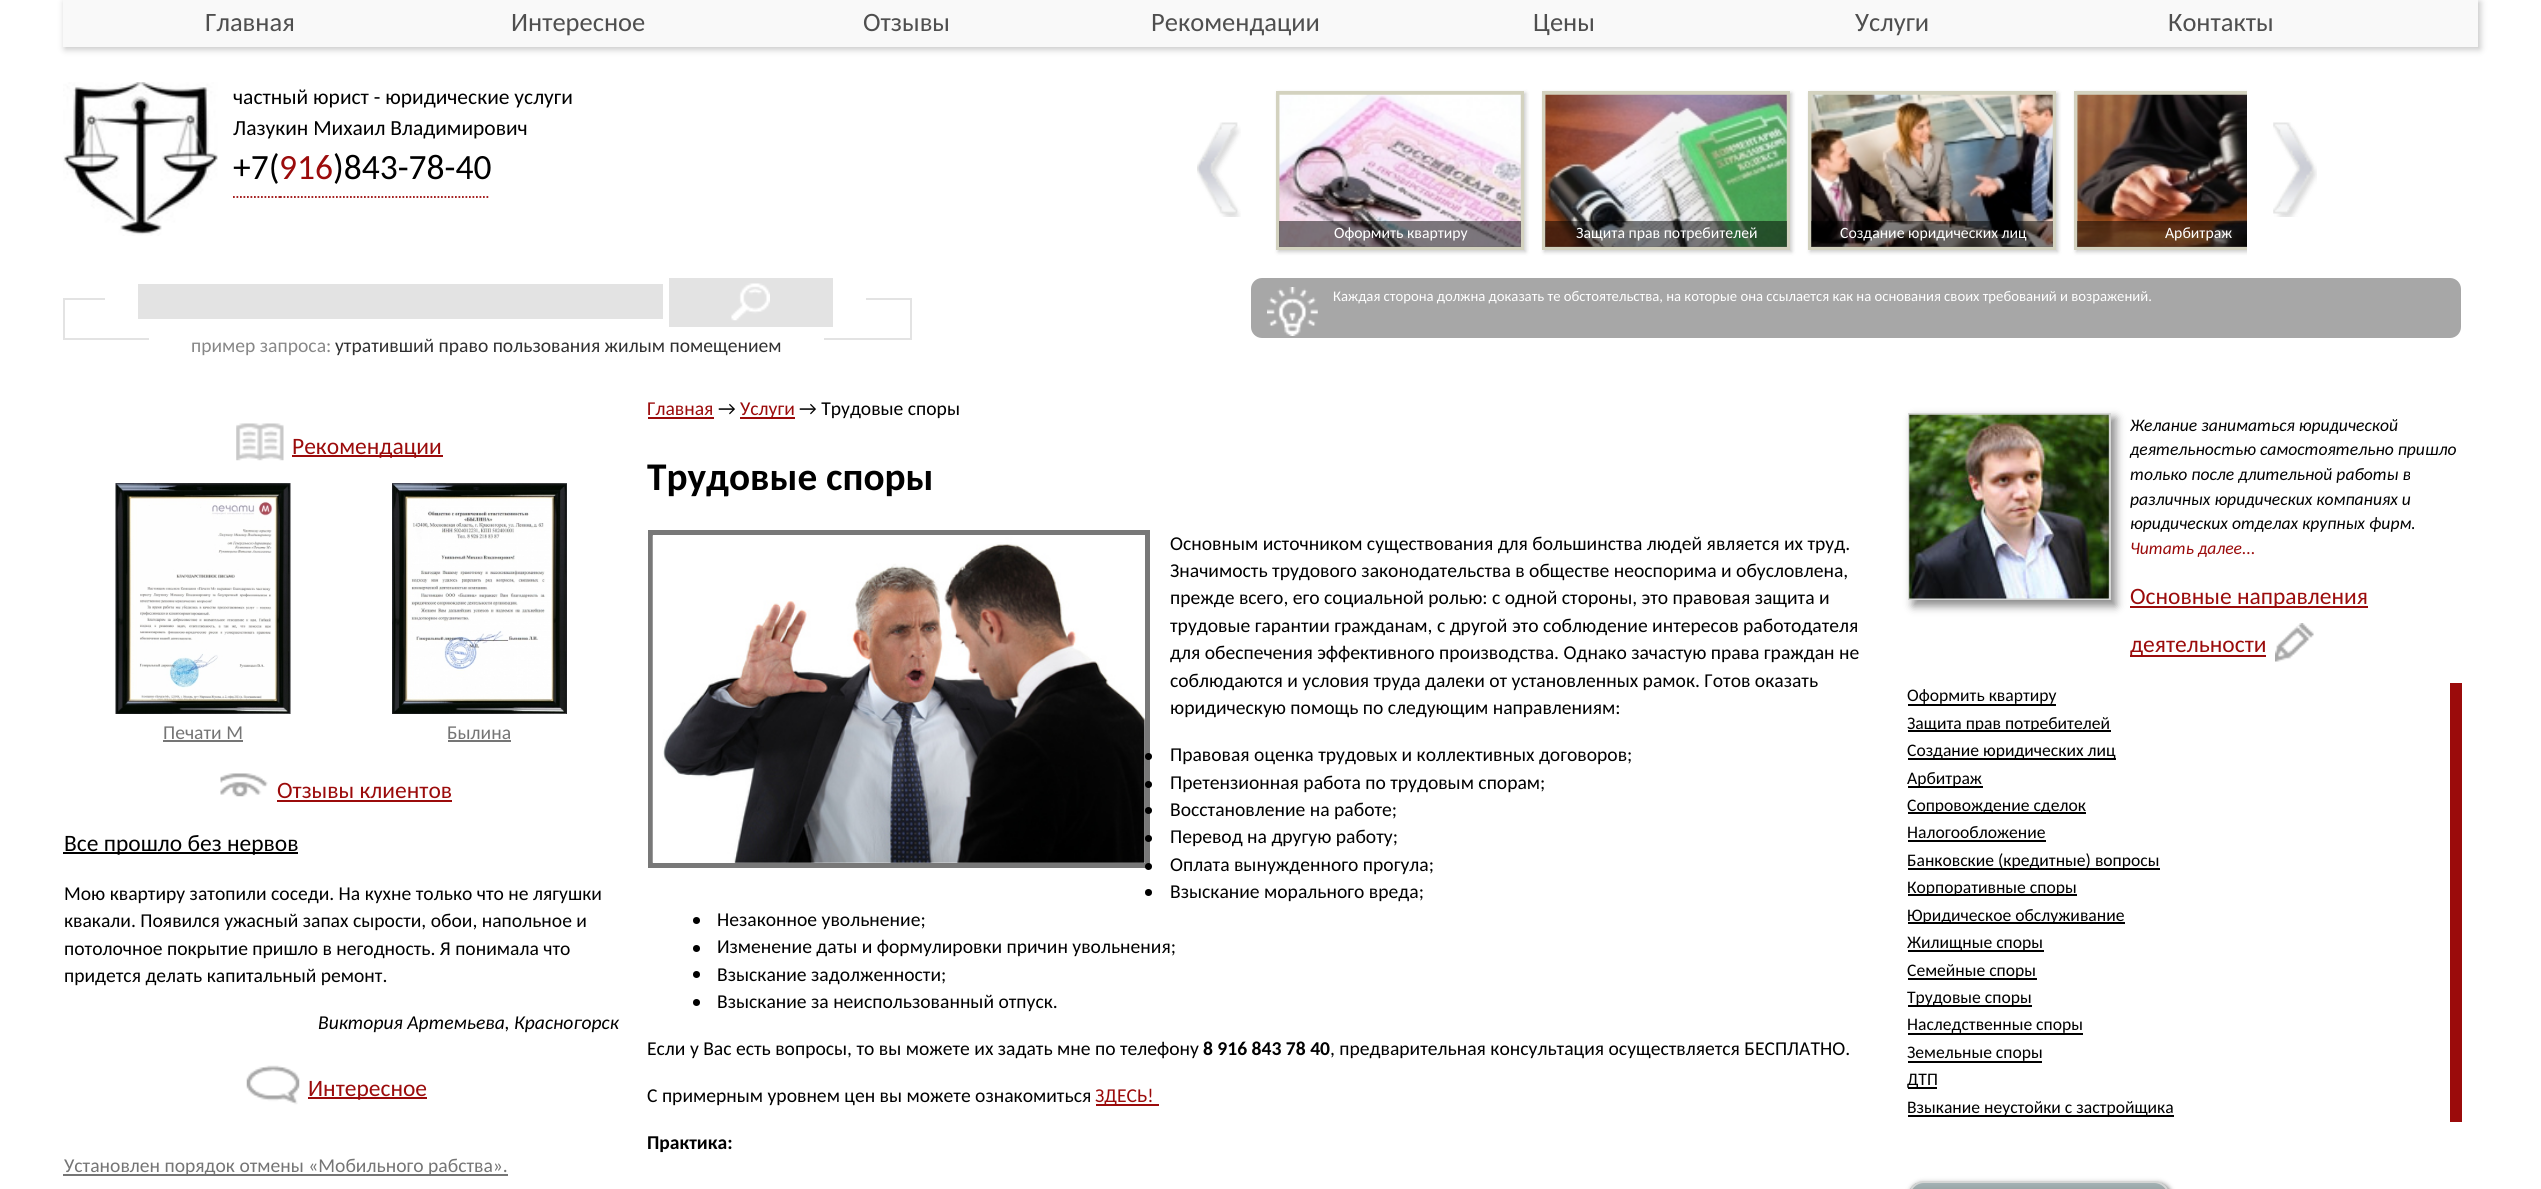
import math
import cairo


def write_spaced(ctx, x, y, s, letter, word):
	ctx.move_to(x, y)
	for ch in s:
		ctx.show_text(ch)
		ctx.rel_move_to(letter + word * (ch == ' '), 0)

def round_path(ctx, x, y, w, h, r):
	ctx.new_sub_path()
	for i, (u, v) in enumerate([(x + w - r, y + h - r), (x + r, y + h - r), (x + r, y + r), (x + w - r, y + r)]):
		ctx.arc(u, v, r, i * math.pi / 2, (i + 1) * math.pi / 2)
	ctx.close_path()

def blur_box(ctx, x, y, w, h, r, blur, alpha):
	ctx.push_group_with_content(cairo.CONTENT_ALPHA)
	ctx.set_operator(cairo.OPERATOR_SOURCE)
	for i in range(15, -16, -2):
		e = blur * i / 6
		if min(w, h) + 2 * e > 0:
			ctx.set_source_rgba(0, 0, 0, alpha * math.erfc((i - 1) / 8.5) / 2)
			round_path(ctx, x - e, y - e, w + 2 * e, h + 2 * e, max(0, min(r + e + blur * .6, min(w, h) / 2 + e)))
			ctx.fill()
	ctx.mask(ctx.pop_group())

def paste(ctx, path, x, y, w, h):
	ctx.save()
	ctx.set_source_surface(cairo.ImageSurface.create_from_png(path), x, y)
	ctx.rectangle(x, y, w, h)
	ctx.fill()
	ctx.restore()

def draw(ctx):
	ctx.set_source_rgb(1, 1, 1)
	ctx.paint()
	ctx.set_source_rgb(0.761, 0.761, 0.761)
	blur_box(ctx, 65, 2, 2415, 47, 0, 3.5, 1)
	ctx.set_source_rgb(0.976, 0.976, 0.976)
	ctx.rectangle(63, 0, 2415, 47)
	ctx.fill()
	ctx.select_font_face('Carlito')
	ctx.set_font_size(26.5)
	ctx.set_source_rgb(0.31, 0.31, 0.31)
	for x, y, s in [
		(205, 31, 'Главная'),
		(511, 31, 'Интересное'),
		(863, 31, 'Отзывы'),
		(1151, 31, 'Рекомендации'),
		(1533, 31, 'Цены'),
		(1855, 31, 'Услуги'),
		(2168, 31, 'Контакты'),
	]:
		ctx.move_to(x, y)
		ctx.show_text(s)
	paste(ctx, 'media/1.png', 63, 82, 155, 154)
	ctx.set_font_size(21.5)
	ctx.set_source_rgb(0, 0, 0)
	ctx.move_to(233, 104)
	ctx.show_text('частный юрист - юридические услуги')
	ctx.move_to(233, 135)
	ctx.show_text('Лазукин Михаил Владимирович')
	ctx.set_font_size(35.5)
	ctx.move_to(233, 179)
	ctx.show_text('+7(')
	ctx.new_path()
	ctx.move_to(233, 197)
	ctx.line_to(280, 197)
	ctx.set_source_rgb(0.608, 0.043, 0.043)
	ctx.set_line_width(1.8)
	ctx.set_dash([1.75, 1.75])
	ctx.stroke()
	ctx.new_path()
	ctx.move_to(280, 197)
	ctx.line_to(332.5, 197)
	ctx.stroke()
	ctx.move_to(279, 179)
	ctx.show_text('916')
	ctx.set_source_rgb(0, 0, 0)
	ctx.move_to(333, 179)
	ctx.show_text(')843-78-40')
	ctx.new_path()
	ctx.move_to(332.5, 197)
	ctx.line_to(490, 197)
	ctx.set_source_rgb(0.608, 0.043, 0.043)
	ctx.stroke()
	paste(ctx, 'media/2.png', 1197, 122, 44, 95)
	ctx.save()
	ctx.rectangle(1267, 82, 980, 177)
	ctx.clip()
	ctx.set_source_rgb(0, 0, 0)
	blur_box(ctx, 2076, 93, 248, 159, 0, 2, 0.2)
	ctx.restore()
	ctx.save()
	ctx.rectangle(1267, 82, 980, 177)
	ctx.clip()
	ctx.rectangle(2076, 93, 244, 155)
	ctx.set_source_rgb(0.827, 0.824, 0.749)
	ctx.set_line_width(4)
	ctx.set_dash([])
	ctx.stroke()
	ctx.restore()
	paste(ctx, 'media/3.png', 2273, 122, 44, 95)
	ctx.set_source_rgb(0, 0, 0)
	blur_box(ctx, 1278, 93, 248, 159, 0, 2, 0.2)
	ctx.rectangle(1278, 93, 244, 155)
	ctx.set_source_rgb(0.827, 0.824, 0.749)
	ctx.set_line_width(4)
	ctx.set_dash([])
	ctx.stroke()
	paste(ctx, 'media/4.png', 1279, 94, 242, 153)
	ctx.set_source_rgba(0, 0, 0, 0.5)
	ctx.rectangle(1279, 221, 242, 26)
	ctx.fill()
	ctx.set_font_size(15.75)
	ctx.set_source_rgb(1, 1, 1)
	ctx.move_to(1334, 238)
	ctx.show_text('Оформить квартиру')
	ctx.set_source_rgb(0, 0, 0)
	blur_box(ctx, 1544, 93, 248, 159, 0, 2, 0.2)
	ctx.rectangle(1544, 93, 244, 155)
	ctx.set_source_rgb(0.827, 0.824, 0.749)
	ctx.stroke()
	paste(ctx, 'media/5.png', 1545, 94, 242, 153)
	ctx.set_source_rgba(0, 0, 0, 0.5)
	ctx.rectangle(1545, 221, 242, 26)
	ctx.fill()
	ctx.set_source_rgb(1, 1, 1)
	ctx.move_to(1576, 238)
	ctx.show_text('Защита прав потребителей')
	ctx.set_source_rgb(0, 0, 0)
	blur_box(ctx, 1810, 93, 248, 159, 0, 2, 0.2)
	ctx.rectangle(1810, 93, 244, 155)
	ctx.set_source_rgb(0.827, 0.824, 0.749)
	ctx.stroke()
	paste(ctx, 'media/6.png', 1811, 94, 242, 153)
	ctx.set_source_rgba(0, 0, 0, 0.5)
	ctx.rectangle(1811, 221, 242, 26)
	ctx.fill()
	ctx.set_source_rgb(1, 1, 1)
	ctx.move_to(1840, 238)
	ctx.show_text('Создание юридических лиц')
	paste(ctx, 'media/7.png', 2077, 94, 170, 153)
	ctx.set_source_rgba(0, 0, 0, 0.5)
	ctx.rectangle(2077, 221, 170, 26)
	ctx.fill()
	ctx.set_source_rgb(1, 1, 1)
	ctx.move_to(2165, 238)
	ctx.show_text('Арбитраж')
	ctx.set_source_rgb(0.655, 0.655, 0.655)
	round_path(ctx, 1252, 279, 1208, 58, 10)
	ctx.fill_preserve()
	ctx.set_line_width(2)
	ctx.stroke()
	paste(ctx, 'media/8.png', 1267, 287, 51, 49)
	ctx.set_font_size(14.7)
	ctx.set_source_rgb(1, 1, 1)
	write_spaced(ctx, 1333, 301, 'Каждая сторона должна доказать те обстоятельства, на которые она ссылается как на основания своих требований и возражений.', 0, -0.1)
	ctx.rectangle(64, 299, 847, 40)
	ctx.set_source_rgb(0.89, 0.89, 0.89)
	ctx.stroke()
	ctx.set_source_rgb(1, 1, 1)
	ctx.rectangle(105, 298, 761, 2)
	ctx.fill()
	ctx.set_source_rgb(0.89, 0.89, 0.89)
	ctx.rectangle(138, 284, 525, 35)
	ctx.rectangle(669, 278, 164, 49)
	ctx.fill()
	paste(ctx, 'media/9.png', 731, 283, 39, 38)
	ctx.set_source_rgb(1, 1, 1)
	ctx.rectangle(149, 338, 675, 2)
	ctx.fill()
	ctx.set_font_size(19.6)
	ctx.set_source_rgb(0.529, 0.529, 0.529)
	ctx.move_to(191, 352)
	ctx.show_text('пример запроса:')
	ctx.set_source_rgb(0.192, 0.192, 0.192)
	ctx.move_to(335, 352)
	ctx.show_text('утративший право пользования жилым помещением')
	paste(ctx, 'media/10.png', 236, 423, 48, 38)
	ctx.set_source_rgb(0.608, 0.043, 0.043)
	ctx.rectangle(292, 455, 151, 2)
	ctx.fill()
	ctx.set_font_size(23.5)
	ctx.move_to(292, 454)
	ctx.show_text('Рекомендации')
	paste(ctx, 'media/11.png', 115, 483, 176, 231)
	ctx.set_font_size(19.6)
	ctx.set_source_rgb(0.459, 0.459, 0.459)
	ctx.move_to(163, 739)
	ctx.show_text('Печати М')
	ctx.rectangle(163, 740, 80, 2)
	ctx.fill()
	paste(ctx, 'media/12.png', 392, 483, 175, 231)
	ctx.move_to(447, 739)
	ctx.show_text('Былина')
	ctx.rectangle(448, 740, 63, 2)
	ctx.fill()
	paste(ctx, 'media/13.png', 220, 773, 48, 24)
	ctx.set_font_size(23.5)
	ctx.set_source_rgb(0.608, 0.043, 0.043)
	ctx.move_to(277, 798)
	ctx.show_text('Отзывы клиентов')
	ctx.rectangle(277, 800, 175, 2)
	ctx.fill()
	ctx.set_source_rgb(0, 0, 0)
	ctx.rectangle(63, 852, 235, 2)
	ctx.fill()
	ctx.move_to(64, 851)
	ctx.show_text('Все прошло без нервов')
	ctx.set_font_size(19.6)
	for x, y, s in [
		(64, 900, 'Мою квартиру затопили соседи. На кухне только что не лягушки'),
		(64, 927, 'квакали. Появился ужасный запах сырости, обои, напольное и'),
		(64, 955, 'потолочное покрытие пришло в негодность. Я понимала что'),
		(64, 982, 'придется делать капитальный ремонт.'),
	]:
		ctx.move_to(x, y)
		ctx.show_text(s)
	ctx.select_font_face('Carlito', cairo.FONT_SLANT_ITALIC)
	ctx.move_to(318, 1029)
	ctx.show_text('Виктория Артемьева, Красногорск')
	paste(ctx, 'media/14.png', 246, 1065, 54, 40)
	ctx.set_source_rgb(0.608, 0.043, 0.043)
	ctx.rectangle(308, 1097, 119, 2)
	ctx.fill()
	ctx.select_font_face('Carlito')
	ctx.set_font_size(23.5)
	ctx.move_to(308, 1096)
	ctx.show_text('Интересное')
	ctx.set_source_rgb(0.459, 0.459, 0.459)
	ctx.rectangle(63, 1174, 445, 2)
	ctx.fill()
	ctx.set_font_size(19.6)
	ctx.move_to(64, 1172)
	ctx.show_text('Установлен порядок отмены «Мобильного рабства».')
	ctx.set_source_rgb(0.608, 0.043, 0.043)
	ctx.move_to(647, 415)
	ctx.show_text('Главная')
	ctx.rectangle(648, 417, 66, 2)
	ctx.fill()
	ctx.set_source_rgb(0, 0, 0)
	ctx.move_to(718, 415)
	ctx.show_text('→')
	ctx.set_source_rgb(0.608, 0.043, 0.043)
	ctx.rectangle(740, 417, 55, 2)
	ctx.fill()
	ctx.move_to(740, 415)
	ctx.show_text('Услуги')
	ctx.set_source_rgb(0, 0, 0)
	ctx.move_to(799, 415)
	ctx.show_text('→ Трудовые споры')
	ctx.select_font_face('Carlito', cairo.FONT_SLANT_NORMAL, cairo.FONT_WEIGHT_BOLD)
	ctx.set_font_size(39.25)
	ctx.move_to(647, 490)
	ctx.show_text('Трудовые споры')
	ctx.rectangle(650.5, 532.5, 497, 333)
	ctx.set_source_rgb(0.471, 0.471, 0.471)
	ctx.set_line_width(5)
	ctx.stroke()
	paste(ctx, 'media/15.png', 652, 535, 493, 328)
	ctx.select_font_face('Carlito')
	ctx.set_font_size(19.6)
	ctx.set_source_rgb(0, 0, 0)
	for x, y, s in [
		(1170, 550, 'Основным источником существования для большинства людей является их труд.'),
		(1170, 577, 'Значимость трудового законодательства в обществе неоспорима и обусловлена,'),
		(1170, 604, 'прежде всего, его социальной ролью: с одной стороны, это правовая защита и'),
		(1170, 632, 'трудовые гарантии гражданам, с другой это соблюдение интересов работодателя'),
		(1170, 659, 'для обеспечения эффективного производства. Однако зачастую права граждан не'),
		(1170, 687, 'соблюдаются и условия труда далеки от установленных рамок. Готов оказать'),
		(1170, 714, 'юридическую помощь по следующим направлениям:'),
	]:
		ctx.move_to(x, y)
		ctx.show_text(s)
	ctx.new_path()
	ctx.arc(1148.5, 756.5, 3.5, 0, 2 * math.pi)
	ctx.fill()
	ctx.move_to(1170, 761)
	ctx.show_text('Правовая оценка трудовых и коллективных договоров;')
	ctx.new_path()
	ctx.arc(1148.5, 784.5, 3.5, 0, 2 * math.pi)
	ctx.fill()
	ctx.move_to(1170, 789)
	ctx.show_text('Претензионная работа по трудовым спорам;')
	ctx.new_path()
	ctx.arc(1148.5, 810.5, 3.5, 0, 2 * math.pi)
	ctx.fill()
	ctx.move_to(1170, 816)
	ctx.show_text('Восстановление на работе;')
	ctx.new_path()
	ctx.arc(1148.5, 838.5, 3.5, 0, 2 * math.pi)
	ctx.fill()
	ctx.move_to(1170, 843)
	ctx.show_text('Перевод на другую работу;')
	ctx.new_path()
	ctx.arc(1148.5, 866.5, 3.5, 0, 2 * math.pi)
	ctx.fill()
	ctx.move_to(1170, 871)
	ctx.show_text('Оплата вынужденного прогула;')
	ctx.new_path()
	ctx.arc(1148.5, 892.5, 3.5, 0, 2 * math.pi)
	ctx.fill()
	ctx.move_to(1170, 898)
	ctx.show_text('Взыскание морального вреда;')
	ctx.new_path()
	ctx.arc(696.5, 920.5, 3.5, 0, 2 * math.pi)
	ctx.fill()
	ctx.move_to(717, 926)
	ctx.show_text('Незаконное увольнение;')
	ctx.new_path()
	ctx.arc(696.5, 948.5, 3.5, 0, 2 * math.pi)
	ctx.fill()
	ctx.move_to(717, 953)
	ctx.show_text('Изменение даты и формулировки причин увольнения;')
	ctx.new_path()
	ctx.arc(696.5, 974.5, 3.5, 0, 2 * math.pi)
	ctx.fill()
	ctx.move_to(717, 981)
	ctx.show_text('Взыскание задолженности;')
	ctx.new_path()
	ctx.arc(696.5, 1002.5, 3.5, 0, 2 * math.pi)
	ctx.fill()
	ctx.move_to(717, 1008)
	ctx.show_text('Взыскание за неиспользованный отпуск.')
	ctx.move_to(647, 1055)
	ctx.show_text('Если у Вас есть вопросы, то вы можете их задать мне по телефону')
	ctx.select_font_face('Carlito', cairo.FONT_SLANT_NORMAL, cairo.FONT_WEIGHT_BOLD)
	ctx.move_to(1203, 1055)
	ctx.show_text('8 916 843 78 40')
	ctx.select_font_face('Carlito')
	ctx.move_to(1330, 1055)
	ctx.show_text(', предварительная консультация осуществляется БЕСПЛАТНО.')
	ctx.move_to(647, 1102)
	ctx.show_text('С примерным уровнем цен вы можете ознакомиться')
	ctx.set_source_rgb(0.608, 0.043, 0.043)
	ctx.rectangle(1096, 1104, 63, 2)
	ctx.fill()
	ctx.move_to(1095, 1102)
	ctx.show_text('ЗДЕСЬ!')
	ctx.select_font_face('Carlito', cairo.FONT_SLANT_NORMAL, cairo.FONT_WEIGHT_BOLD)
	ctx.set_source_rgb(0, 0, 0)
	ctx.move_to(647, 1149)
	ctx.show_text('Практика:')
	ctx.set_source_rgb(0.545, 0.545, 0.545)
	blur_box(ctx, 1913, 418, 203, 188, 0, 4.5, 1)
	ctx.rectangle(1909, 414, 201, 185)
	ctx.set_source_rgb(0.835, 0.839, 0.835)
	ctx.set_line_width(2)
	ctx.stroke()
	paste(ctx, 'media/16.png', 1909, 414, 200, 185)
	ctx.select_font_face('Carlito', cairo.FONT_SLANT_ITALIC)
	ctx.set_font_size(17.6)
	ctx.set_source_rgb(0, 0, 0)
	for x, y, s in [
		(2130, 431, 'Желание заниматься юридической'),
		(2130, 455, 'деятельностью самостоятельно пришло'),
		(2130, 480, 'только после длительной работы в'),
		(2130, 505, 'различных юридических компаниях и'),
		(2130, 529, 'юридических отделах крупных фирм.'),
	]:
		ctx.move_to(x, y)
		ctx.show_text(s)
	ctx.set_source_rgb(0.608, 0.043, 0.043)
	ctx.move_to(2130, 554)
	ctx.show_text('Читать далее...')
	ctx.rectangle(2130, 606, 238, 2)
	ctx.fill()
	ctx.select_font_face('Carlito')
	ctx.set_font_size(23.5)
	ctx.move_to(2130, 604)
	ctx.show_text('Основные направления')
	ctx.rectangle(2130, 655, 136, 2)
	ctx.fill()
	ctx.move_to(2130, 652)
	ctx.show_text('деятельности')
	paste(ctx, 'media/17.png', 2275, 623, 39, 39)
	ctx.rectangle(2450, 683, 12, 439)
	ctx.fill()
	ctx.set_font_size(17.6)
	ctx.set_source_rgb(0, 0, 0)
	ctx.move_to(1907, 701)
	ctx.show_text('Оформить квартиру')
	ctx.rectangle(1908, 704, 148, 2)
	ctx.fill()
	ctx.rectangle(1908, 730, 203, 2)
	ctx.fill()
	ctx.move_to(1907, 729)
	ctx.show_text('Защита прав потребителей')
	ctx.rectangle(1908, 758, 208, 2)
	ctx.fill()
	ctx.move_to(1907, 756)
	ctx.show_text('Создание юридических лиц')
	ctx.rectangle(1908, 786, 75, 2)
	ctx.fill()
	ctx.move_to(1907, 784)
	ctx.show_text('Арбитраж')
	ctx.rectangle(1908, 812, 178, 2)
	ctx.fill()
	ctx.move_to(1907, 811)
	ctx.show_text('Сопровождение сделок')
	ctx.move_to(1907, 838)
	ctx.show_text('Налогообложение')
	ctx.rectangle(1908, 840, 138, 2)
	ctx.fill()
	ctx.rectangle(1908, 868, 252, 2)
	ctx.fill()
	ctx.move_to(1907, 866)
	ctx.show_text('Банковские (кредитные) вопросы')
	ctx.rectangle(1908, 894, 169, 2)
	ctx.fill()
	ctx.move_to(1907, 893)
	ctx.show_text('Корпоративные споры')
	ctx.rectangle(1908, 922, 217, 2)
	ctx.fill()
	ctx.move_to(1907, 921)
	ctx.show_text('Юридическое обслуживание')
	ctx.rectangle(1908, 950, 136, 2)
	ctx.fill()
	ctx.move_to(1907, 948)
	ctx.show_text('Жилищные споры')
	ctx.rectangle(1908, 978, 129, 2)
	ctx.fill()
	ctx.move_to(1907, 976)
	ctx.show_text('Семейные споры')
	ctx.rectangle(1908, 1005, 124, 2)
	ctx.fill()
	ctx.move_to(1907, 1003)
	ctx.show_text('Трудовые споры')
	ctx.move_to(1907, 1030)
	ctx.show_text('Наследственные споры')
	ctx.rectangle(1908, 1033, 175, 2)
	ctx.fill()
	ctx.move_to(1907, 1058)
	ctx.show_text('Земельные споры')
	ctx.rectangle(1908, 1061, 134, 2)
	ctx.fill()
	ctx.rectangle(1908, 1087, 29, 2)
	ctx.fill()
	ctx.move_to(1907, 1085)
	ctx.show_text('ДТП')
	ctx.rectangle(1908, 1115, 266, 2)
	ctx.fill()
	ctx.move_to(1907, 1113)
	ctx.show_text('Взыкание неустойки с застройщика')
	ctx.set_source_rgb(0.494, 0.494, 0.494)
	blur_box(ctx, 1909, 1183, 263, 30, 16, 2.5, 1)
	ctx.save()
	round_path(ctx, 1908, 1181, 262, 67, 16)
	ctx.clip()
	gradient = cairo.LinearGradient(2039, 1183, 2039, 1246)
	gradient.add_color_stop_rgba(0, 0.643, 0.698, 0.706, 1)
	gradient.add_color_stop_rgba(0.45, 0.443, 0.478, 0.467, 1)
	gradient.add_color_stop_rgba(0.45, 0.039, 0.051, 0.039, 1)
	gradient.add_color_stop_rgba(1, 0.039, 0.031, 0.035, 1)
	ctx.set_source(gradient)
	ctx.rectangle(1908, 1183, 262, 6)
	ctx.fill()
	ctx.restore()
	round_path(ctx, 1909, 1182, 260, 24, 15)
	ctx.set_source_rgb(0.835, 0.839, 0.835)
	ctx.stroke()


surface = cairo.ImageSurface(cairo.FORMAT_RGB24, 2541, 1189)
ctx = cairo.Context(surface)
options = cairo.FontOptions()
options.set_hint_metrics(cairo.HINT_METRICS_OFF)
options.set_hint_style(cairo.HINT_STYLE_NONE)
ctx.set_font_options(options)
ctx.set_miter_limit(4)
draw(ctx)
surface.write_to_png('image.png')
